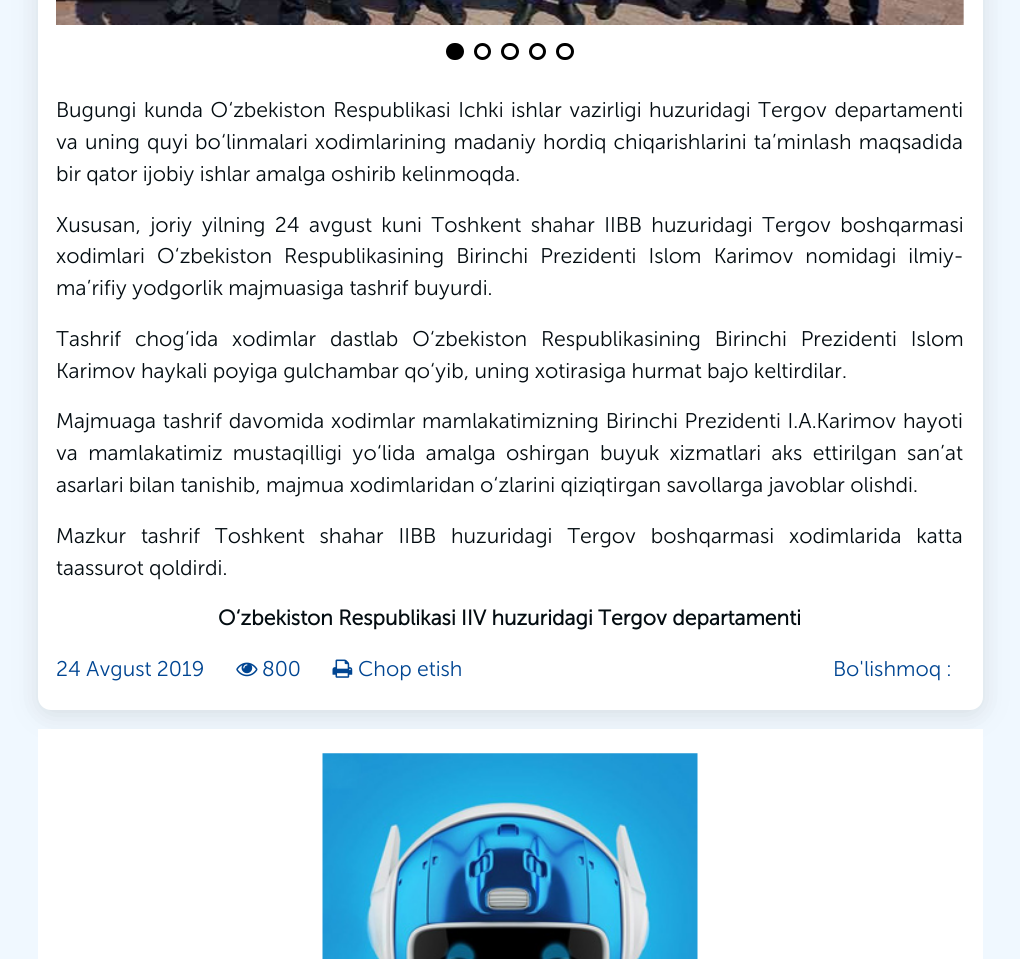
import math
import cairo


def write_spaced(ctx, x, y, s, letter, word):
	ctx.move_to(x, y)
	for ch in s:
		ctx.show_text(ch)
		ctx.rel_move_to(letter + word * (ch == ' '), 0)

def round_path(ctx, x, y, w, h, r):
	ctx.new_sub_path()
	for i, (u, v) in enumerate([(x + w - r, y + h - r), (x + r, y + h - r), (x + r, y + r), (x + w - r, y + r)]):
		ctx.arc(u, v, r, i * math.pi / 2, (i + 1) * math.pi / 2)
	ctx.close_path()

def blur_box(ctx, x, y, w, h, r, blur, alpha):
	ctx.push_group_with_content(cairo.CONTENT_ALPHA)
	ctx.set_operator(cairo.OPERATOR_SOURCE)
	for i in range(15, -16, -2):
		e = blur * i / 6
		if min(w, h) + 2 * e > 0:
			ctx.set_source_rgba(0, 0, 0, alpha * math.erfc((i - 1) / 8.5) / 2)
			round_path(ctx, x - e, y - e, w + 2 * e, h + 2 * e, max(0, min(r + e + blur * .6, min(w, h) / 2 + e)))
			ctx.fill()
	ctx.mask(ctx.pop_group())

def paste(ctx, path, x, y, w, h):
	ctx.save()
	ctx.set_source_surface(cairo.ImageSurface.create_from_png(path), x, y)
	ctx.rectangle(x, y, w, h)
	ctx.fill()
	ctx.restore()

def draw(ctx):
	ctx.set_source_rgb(0.941, 0.969, 1)
	ctx.paint()
	ctx.set_source_rgb(0.431, 0.431, 0.431)
	blur_box(ctx, 38, -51, 945, 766, 13, 12.5, 0.2)
	ctx.set_source_rgb(1, 1, 1)
	round_path(ctx, 38, -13, 945, 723, 13)
	ctx.fill()
	paste(ctx, 'media/1.png', 56, 0, 908, 25)
	ctx.set_source_rgb(0, 0, 0)
	round_path(ctx, 447.5, 44.5, 15, 14, 7)
	ctx.fill_preserve()
	ctx.set_line_width(3)
	ctx.stroke()
	ctx.arc(482.5, 51.5, 7, 0, 2 * math.pi)
	ctx.stroke()
	round_path(ctx, 502.5, 44.5, 15, 14, 7)
	ctx.stroke()
	ctx.arc(537.5, 51.5, 7, 0, 2 * math.pi)
	ctx.stroke()
	round_path(ctx, 557.5, 44.5, 15, 14, 7)
	ctx.stroke()
	ctx.select_font_face('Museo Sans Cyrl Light')
	ctx.set_font_size(21.25)
	ctx.set_source_rgb(0.012, 0.047, 0.067)
	write_spaced(ctx, 56, 117, 'Bugungi kunda O‘zbekiston Respublikasi Ichki ishlar vazirligi huzuridagi Tergov departamenti', 0, 2.25)
	write_spaced(ctx, 56, 149, 'va uning quyi bo‘linmalari xodimlarining madaniy hordiq chiqarishlarini ta’minlash maqsadida', 0, 1.75)
	ctx.move_to(56, 181)
	ctx.show_text('bir qator ijobiy ishlar amalga oshirib kelinmoqda.')
	write_spaced(ctx, 56, 232, 'Xususan, joriy yilning 24 avgust kuni Toshkent shahar IIBB huzuridagi Tergov boshqarmasi', 0, 4.1)
	write_spaced(ctx, 56, 263, 'xodimlari O‘zbekiston Respublikasining Birinchi Prezidenti Islom Karimov nomidagi ilmiy-', 0, 6.75)
	ctx.move_to(56, 295)
	ctx.show_text('ma’rifiy yodgorlik majmuasiga tashrif buyurdi.')
	write_spaced(ctx, 56, 346, 'Tashrif chog‘ida xodimlar dastlab O‘zbekiston Respublikasining Birinchi Prezidenti Islom', 0, 8.5)
	ctx.move_to(56, 378)
	ctx.show_text('Karimov haykali poyiga gulchambar qo‘yib, uning xotirasiga hurmat bajo keltirdilar.')
	write_spaced(ctx, 56, 428, 'Majmuaga tashrif davomida xodimlar mamlakatimizning Birinchi Prezidenti I.A.Karimov hayoti', 0, 1.5)
	write_spaced(ctx, 56, 460, 'va mamlakatimiz mustaqilligi yo‘lida amalga oshirgan buyuk xizmatlari aks ettirilgan san’at', 0, 5)
	ctx.move_to(56, 492)
	ctx.show_text('asarlari bilan tanishib, majmua xodimlaridan o‘zlarini qiziqtirgan savollarga javoblar olishdi.')
	write_spaced(ctx, 56, 543, 'Mazkur tashrif Toshkent shahar IIBB huzuridagi Tergov boshqarmasi xodimlarida katta', 0, 9.5)
	ctx.move_to(56, 575)
	ctx.show_text('taassurot qoldirdi.')
	ctx.select_font_face('Museo Sans Cyrl', cairo.FONT_SLANT_NORMAL, cairo.FONT_WEIGHT_BOLD)
	ctx.move_to(218, 625)
	ctx.show_text('O‘zbekiston Respublikasi IIV huzuridagi Tergov departamenti')
	ctx.select_font_face('Museo Sans Cyrl Light')
	ctx.set_source_rgb(0, 0.271, 0.573)
	ctx.move_to(56, 676)
	ctx.show_text('24 Avgust 2019')
	paste(ctx, 'media/2.png', 236, 662, 22, 15)
	ctx.move_to(262, 676)
	ctx.show_text('800')
	paste(ctx, 'media/3.png', 332, 659, 21, 19)
	ctx.move_to(358, 676)
	ctx.show_text('Chop etish')
	ctx.move_to(833, 676)
	ctx.show_text('Bo\'lishmoq :')
	ctx.set_source_rgb(1, 1, 1)
	ctx.rectangle(38, 729, 945, 230)
	ctx.fill()
	paste(ctx, 'media/4.png', 322, 753, 376, 206)


surface = cairo.ImageSurface(cairo.FORMAT_RGB24, 1020, 959)
ctx = cairo.Context(surface)
options = cairo.FontOptions()
options.set_hint_metrics(cairo.HINT_METRICS_OFF)
options.set_hint_style(cairo.HINT_STYLE_NONE)
ctx.set_font_options(options)
ctx.set_miter_limit(4)
draw(ctx)
surface.write_to_png('image.png')
